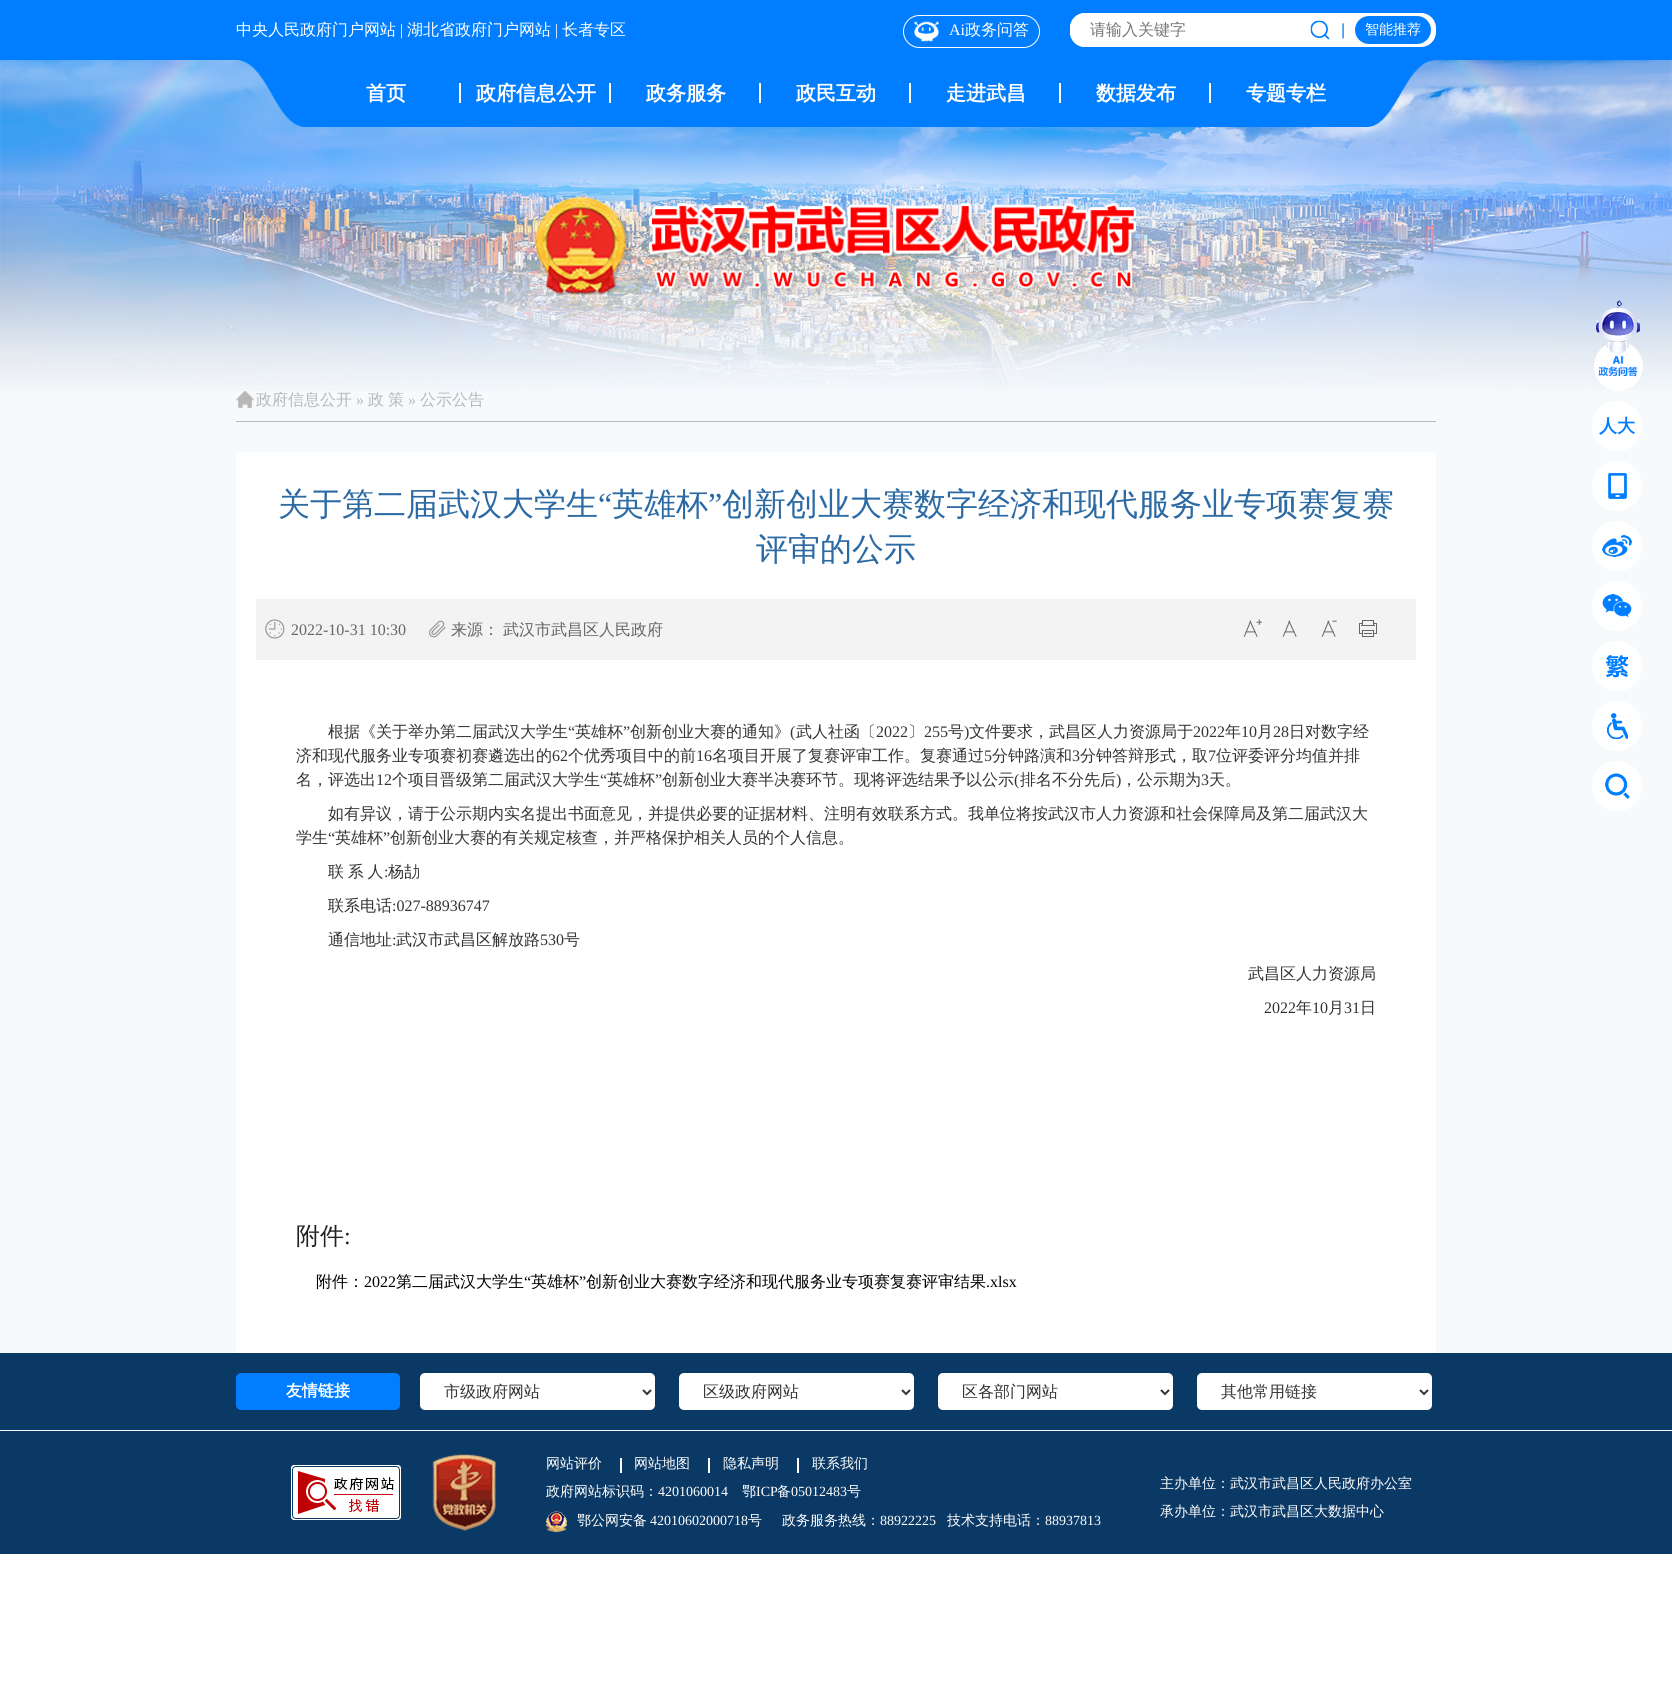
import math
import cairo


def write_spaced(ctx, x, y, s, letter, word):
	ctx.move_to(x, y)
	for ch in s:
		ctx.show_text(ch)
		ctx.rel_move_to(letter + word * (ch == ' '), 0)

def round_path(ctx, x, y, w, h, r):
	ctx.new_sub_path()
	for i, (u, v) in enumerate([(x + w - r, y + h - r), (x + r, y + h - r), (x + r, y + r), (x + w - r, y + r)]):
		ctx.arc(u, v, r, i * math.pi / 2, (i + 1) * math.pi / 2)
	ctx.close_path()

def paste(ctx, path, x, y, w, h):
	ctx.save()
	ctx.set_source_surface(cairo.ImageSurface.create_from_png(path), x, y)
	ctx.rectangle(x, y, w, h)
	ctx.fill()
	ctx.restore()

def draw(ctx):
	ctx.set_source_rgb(1, 1, 1)
	ctx.paint()
	ctx.set_source_rgb(0.965, 0.98, 0.988)
	ctx.rectangle(0, 60, 1672, 1293)
	ctx.fill()
	paste(ctx, 'media/1.png', 0, 60, 1672, 331)
	ctx.set_source_rgb(0, 0.494, 1)
	ctx.rectangle(0, 0, 1672, 60)
	ctx.fill()
	ctx.select_font_face('WenQuanYi Zen Hei Medium')
	ctx.set_font_size(16)
	ctx.set_source_rgb(1, 1, 1)
	ctx.move_to(236, 35)
	ctx.show_text('中央人民政府门户网站')
	ctx.select_font_face('Liberation Serif')
	ctx.move_to(400, 35)
	ctx.show_text('|')
	ctx.select_font_face('WenQuanYi Zen Hei Medium')
	ctx.move_to(407, 35)
	ctx.show_text('湖北省政府门户网站')
	ctx.select_font_face('Liberation Serif')
	ctx.move_to(555, 35)
	ctx.show_text('|')
	ctx.select_font_face('WenQuanYi Zen Hei Medium')
	ctx.move_to(562, 35)
	ctx.show_text('长者专区')
	round_path(ctx, 1070, 13, 366, 34, 15)
	ctx.fill()
	round_path(ctx, 1070, 13, 240, 34, 15)
	ctx.fill()
	ctx.set_source_rgb(0.459, 0.459, 0.459)
	ctx.move_to(1090, 35)
	ctx.show_text('请输入关键字')
	paste(ctx, 'media/2.png', 1310, 20, 20, 20)
	ctx.select_font_face('Liberation Sans')
	ctx.set_source_rgb(0, 0.494, 1)
	ctx.move_to(1341, 35)
	ctx.show_text('|')
	round_path(ctx, 1355, 16, 76, 28, 14)
	ctx.fill()
	ctx.select_font_face('WenQuanYi Zen Hei Medium')
	ctx.set_font_size(14)
	ctx.set_source_rgb(1, 1, 1)
	ctx.move_to(1365, 34)
	ctx.show_text('智能推荐')
	round_path(ctx, 903.5, 15.5, 136, 32, 16)
	ctx.set_line_width(1)
	ctx.stroke()
	paste(ctx, 'media/3.png', 914, 21, 25, 21)
	ctx.select_font_face('Liberation Serif')
	ctx.set_font_size(16)
	ctx.move_to(949, 35)
	ctx.show_text('Ai')
	ctx.select_font_face('WenQuanYi Zen Hei Medium')
	ctx.move_to(965, 35)
	ctx.show_text('政务问答')
	paste(ctx, 'media/4.png', 237, 60, 1198, 67)
	ctx.select_font_face('WenQuanYi Zen Hei', cairo.FONT_SLANT_NORMAL, cairo.FONT_WEIGHT_BOLD)
	ctx.set_font_size(20)
	ctx.move_to(366, 100)
	ctx.show_text('首页')
	ctx.rectangle(459, 83, 2, 20)
	ctx.fill()
	ctx.move_to(476, 100)
	ctx.show_text('政府信息公开')
	ctx.rectangle(609, 83, 2, 20)
	ctx.fill()
	ctx.move_to(646, 100)
	ctx.show_text('政务服务')
	ctx.rectangle(759, 83, 2, 20)
	ctx.fill()
	ctx.move_to(796, 100)
	ctx.show_text('政民互动')
	ctx.rectangle(909, 83, 2, 20)
	ctx.fill()
	ctx.move_to(946, 100)
	ctx.show_text('走进武昌')
	ctx.rectangle(1059, 83, 2, 20)
	ctx.fill()
	ctx.move_to(1096, 100)
	ctx.show_text('数据发布')
	ctx.rectangle(1209, 83, 2, 20)
	ctx.fill()
	ctx.move_to(1246, 100)
	ctx.show_text('专题专栏')
	paste(ctx, 'media/5.png', 536, 197, 600, 98)
	ctx.set_source_rgb(0.718, 0.718, 0.718)
	ctx.rectangle(236, 421, 1200, 1)
	ctx.fill()
	paste(ctx, 'media/6.png', 236, 391, 18, 17)
	ctx.select_font_face('WenQuanYi Zen Hei Medium')
	ctx.set_font_size(16)
	ctx.move_to(256, 405)
	ctx.show_text('政府信息公开')
	ctx.select_font_face('Liberation Serif')
	ctx.move_to(356, 405)
	ctx.show_text('»')
	ctx.select_font_face('WenQuanYi Zen Hei Medium')
	ctx.move_to(368, 405)
	ctx.show_text('政')
	ctx.move_to(388, 405)
	ctx.show_text('策')
	ctx.select_font_face('Liberation Serif')
	ctx.move_to(408, 405)
	ctx.show_text('»')
	ctx.select_font_face('WenQuanYi Zen Hei Medium')
	ctx.move_to(420, 405)
	ctx.show_text('公示公告')
	ctx.set_source_rgb(1, 1, 1)
	ctx.rectangle(236, 452, 1200, 901)
	ctx.fill()
	ctx.set_font_size(32)
	ctx.set_source_rgb(0.173, 0.416, 0.643)
	ctx.move_to(278, 515)
	ctx.show_text('关于第二届武汉大学生')
	ctx.select_font_face('Liberation Serif')
	ctx.move_to(598, 515)
	ctx.show_text('“')
	ctx.select_font_face('WenQuanYi Zen Hei Medium')
	ctx.move_to(612, 515)
	ctx.show_text('英雄杯')
	ctx.select_font_face('Liberation Serif')
	ctx.move_to(708, 515)
	ctx.show_text('”')
	ctx.select_font_face('WenQuanYi Zen Hei Medium')
	ctx.move_to(722, 515)
	ctx.show_text('创新创业大赛数字经济和现代服务业专项赛复赛')
	ctx.move_to(756, 560)
	ctx.show_text('评审的公示')
	ctx.set_source_rgb(0.953, 0.953, 0.953)
	ctx.rectangle(256, 599, 1160, 61)
	ctx.fill()
	paste(ctx, 'media/7.png', 265, 619, 20, 20)
	ctx.select_font_face('Liberation Serif')
	ctx.set_font_size(16)
	ctx.set_source_rgb(0.4, 0.4, 0.4)
	ctx.move_to(291, 635)
	ctx.show_text('2022-10-31 10:30')
	paste(ctx, 'media/8.png', 429, 620, 17, 18)
	ctx.select_font_face('WenQuanYi Zen Hei Medium')
	ctx.move_to(451, 635)
	ctx.show_text('来源：')
	ctx.move_to(503, 635)
	ctx.show_text('武汉市武昌区人民政府')
	paste(ctx, 'media/9.png', 1243, 619, 19, 18)
	paste(ctx, 'media/10.png', 1282, 620, 15, 17)
	paste(ctx, 'media/11.png', 1321, 620, 16, 17)
	paste(ctx, 'media/12.png', 1359, 620, 18, 17)
	ctx.set_source_rgb(0.2, 0.2, 0.2)
	ctx.move_to(328, 737)
	ctx.show_text('根据《关于举办第二届武汉大学生')
	ctx.select_font_face('Liberation Serif')
	ctx.move_to(568, 737)
	ctx.show_text('“')
	ctx.select_font_face('WenQuanYi Zen Hei Medium')
	ctx.move_to(575, 737)
	ctx.show_text('英雄杯')
	ctx.select_font_face('Liberation Serif')
	ctx.move_to(623, 737)
	ctx.show_text('”')
	ctx.select_font_face('WenQuanYi Zen Hei Medium')
	ctx.move_to(630, 737)
	ctx.show_text('创新创业大赛的通知》')
	ctx.select_font_face('Liberation Serif')
	ctx.move_to(790, 737)
	ctx.show_text('(')
	ctx.select_font_face('WenQuanYi Zen Hei Medium')
	ctx.move_to(796, 737)
	ctx.show_text('武人社函〔')
	ctx.select_font_face('Liberation Serif')
	ctx.move_to(876, 737)
	ctx.show_text('2022')
	ctx.select_font_face('WenQuanYi Zen Hei Medium')
	ctx.move_to(908, 737)
	ctx.show_text('〕')
	ctx.select_font_face('Liberation Serif')
	ctx.move_to(924, 737)
	ctx.show_text('255')
	ctx.select_font_face('WenQuanYi Zen Hei Medium')
	ctx.move_to(948, 737)
	ctx.show_text('号')
	ctx.select_font_face('Liberation Serif')
	ctx.move_to(964, 737)
	ctx.show_text(')')
	ctx.select_font_face('WenQuanYi Zen Hei Medium')
	ctx.move_to(969, 737)
	ctx.show_text('文件要求，武昌区人力资源局于')
	ctx.select_font_face('Liberation Serif')
	ctx.move_to(1193, 737)
	ctx.show_text('2022')
	ctx.select_font_face('WenQuanYi Zen Hei Medium')
	ctx.move_to(1225, 737)
	ctx.show_text('年')
	ctx.select_font_face('Liberation Serif')
	ctx.move_to(1241, 737)
	ctx.show_text('10')
	ctx.select_font_face('WenQuanYi Zen Hei Medium')
	ctx.move_to(1257, 737)
	ctx.show_text('月')
	ctx.select_font_face('Liberation Serif')
	ctx.move_to(1273, 737)
	ctx.show_text('28')
	ctx.select_font_face('WenQuanYi Zen Hei Medium')
	ctx.move_to(1289, 737)
	ctx.show_text('日对数字经')
	ctx.move_to(296, 761)
	ctx.show_text('济和现代服务业专项赛初赛遴选出的')
	ctx.select_font_face('Liberation Serif')
	ctx.move_to(552, 761)
	ctx.show_text('62')
	ctx.select_font_face('WenQuanYi Zen Hei Medium')
	ctx.move_to(568, 761)
	ctx.show_text('个优秀项目中的前')
	ctx.select_font_face('Liberation Serif')
	ctx.move_to(696, 761)
	ctx.show_text('16')
	ctx.select_font_face('WenQuanYi Zen Hei Medium')
	ctx.move_to(712, 761)
	ctx.show_text('名项目开展了复赛评审工作。复赛通过')
	ctx.select_font_face('Liberation Serif')
	ctx.move_to(984, 761)
	ctx.show_text('5')
	ctx.select_font_face('WenQuanYi Zen Hei Medium')
	ctx.move_to(992, 761)
	ctx.show_text('分钟路演和')
	ctx.select_font_face('Liberation Serif')
	ctx.move_to(1072, 761)
	ctx.show_text('3')
	ctx.select_font_face('WenQuanYi Zen Hei Medium')
	ctx.move_to(1080, 761)
	ctx.show_text('分钟答辩形式，取')
	ctx.select_font_face('Liberation Serif')
	ctx.move_to(1208, 761)
	ctx.show_text('7')
	ctx.select_font_face('WenQuanYi Zen Hei Medium')
	ctx.move_to(1216, 761)
	ctx.show_text('位评委评分均值并排')
	ctx.move_to(296, 785)
	ctx.show_text('名，评选出')
	ctx.select_font_face('Liberation Serif')
	ctx.move_to(376, 785)
	ctx.show_text('12')
	ctx.select_font_face('WenQuanYi Zen Hei Medium')
	ctx.move_to(392, 785)
	ctx.show_text('个项目晋级第二届武汉大学生')
	ctx.select_font_face('Liberation Serif')
	ctx.move_to(600, 785)
	ctx.show_text('“')
	ctx.select_font_face('WenQuanYi Zen Hei Medium')
	ctx.move_to(607, 785)
	ctx.show_text('英雄杯')
	ctx.select_font_face('Liberation Serif')
	ctx.move_to(655, 785)
	ctx.show_text('”')
	ctx.select_font_face('WenQuanYi Zen Hei Medium')
	ctx.move_to(662, 785)
	ctx.show_text('创新创业大赛半决赛环节。现将评选结果予以公示')
	ctx.select_font_face('Liberation Serif')
	ctx.move_to(1014, 785)
	ctx.show_text('(')
	ctx.select_font_face('WenQuanYi Zen Hei Medium')
	ctx.move_to(1020, 785)
	ctx.show_text('排名不分先后')
	ctx.select_font_face('Liberation Serif')
	ctx.move_to(1116, 785)
	ctx.show_text(')')
	ctx.select_font_face('WenQuanYi Zen Hei Medium')
	ctx.move_to(1121, 785)
	ctx.show_text('，公示期为')
	ctx.select_font_face('Liberation Serif')
	ctx.move_to(1201, 785)
	ctx.show_text('3')
	ctx.select_font_face('WenQuanYi Zen Hei Medium')
	for x, y, s in [
		(1209, 785, '天。'),
		(328, 819, '如有异议，请于公示期内实名提出书面意见，并提供必要的证据材料、注明有效联系方式。我单位将按武汉市人力资源和社会保障局及第二届武汉大'),
		(296, 843, '学生'),
	]:
		ctx.move_to(x, y)
		ctx.show_text(s)
	ctx.select_font_face('Liberation Serif')
	ctx.move_to(328, 843)
	ctx.show_text('“')
	ctx.select_font_face('WenQuanYi Zen Hei Medium')
	ctx.move_to(335, 843)
	ctx.show_text('英雄杯')
	ctx.select_font_face('Liberation Serif')
	ctx.move_to(383, 843)
	ctx.show_text('”')
	ctx.select_font_face('WenQuanYi Zen Hei Medium')
	ctx.move_to(390, 843)
	ctx.show_text('创新创业大赛的有关规定核查，并严格保护相关人员的个人信息。')
	write_spaced(ctx, 328, 877, '联 系 人', 0, -1)
	ctx.select_font_face('Liberation Serif')
	ctx.move_to(384, 877)
	ctx.show_text(':')
	ctx.select_font_face('WenQuanYi Zen Hei Medium')
	ctx.move_to(388, 877)
	ctx.show_text('杨劼')
	ctx.move_to(328, 911)
	ctx.show_text('联系电话')
	ctx.select_font_face('Liberation Serif')
	ctx.move_to(392, 911)
	ctx.show_text(':027-88936747')
	ctx.select_font_face('WenQuanYi Zen Hei Medium')
	ctx.move_to(328, 945)
	ctx.show_text('通信地址')
	ctx.select_font_face('Liberation Serif')
	ctx.move_to(392, 945)
	ctx.show_text(':')
	ctx.select_font_face('WenQuanYi Zen Hei Medium')
	ctx.move_to(396, 945)
	ctx.show_text('武汉市武昌区解放路')
	ctx.select_font_face('Liberation Serif')
	ctx.move_to(540, 945)
	ctx.show_text('530')
	ctx.select_font_face('WenQuanYi Zen Hei Medium')
	ctx.move_to(564, 945)
	ctx.show_text('号')
	ctx.move_to(1248, 979)
	ctx.show_text('武昌区人力资源局')
	ctx.select_font_face('Liberation Serif')
	ctx.move_to(1264, 1013)
	ctx.show_text('2022')
	ctx.select_font_face('WenQuanYi Zen Hei Medium')
	ctx.move_to(1296, 1013)
	ctx.show_text('年')
	ctx.select_font_face('Liberation Serif')
	ctx.move_to(1312, 1013)
	ctx.show_text('10')
	ctx.select_font_face('WenQuanYi Zen Hei Medium')
	ctx.move_to(1328, 1013)
	ctx.show_text('月')
	ctx.select_font_face('Liberation Serif')
	ctx.move_to(1344, 1013)
	ctx.show_text('31')
	ctx.select_font_face('WenQuanYi Zen Hei Medium')
	ctx.move_to(1360, 1013)
	ctx.show_text('日')
	ctx.set_font_size(24)
	ctx.set_source_rgb(0.129, 0.129, 0.129)
	ctx.move_to(296, 1244)
	ctx.show_text('附件')
	ctx.select_font_face('Liberation Serif')
	ctx.move_to(344, 1244)
	ctx.show_text(':')
	ctx.select_font_face('WenQuanYi Zen Hei Medium')
	ctx.set_font_size(16)
	ctx.set_source_rgb(0, 0, 0)
	ctx.move_to(316, 1287)
	ctx.show_text('附件：')
	ctx.select_font_face('Liberation Serif')
	ctx.move_to(364, 1287)
	ctx.show_text('2022')
	ctx.select_font_face('WenQuanYi Zen Hei Medium')
	ctx.move_to(396, 1287)
	ctx.show_text('第二届武汉大学生')
	ctx.select_font_face('Liberation Serif')
	ctx.move_to(524, 1287)
	ctx.show_text('“')
	ctx.select_font_face('WenQuanYi Zen Hei Medium')
	ctx.move_to(531, 1287)
	ctx.show_text('英雄杯')
	ctx.select_font_face('Liberation Serif')
	ctx.move_to(579, 1287)
	ctx.show_text('”')
	ctx.select_font_face('WenQuanYi Zen Hei Medium')
	ctx.move_to(586, 1287)
	ctx.show_text('创新创业大赛数字经济和现代服务业专项赛复赛评审结果')
	ctx.select_font_face('Liberation Serif')
	ctx.move_to(986, 1287)
	ctx.show_text('.xlsx')
	ctx.set_source_rgb(0.043, 0.224, 0.4)
	ctx.rectangle(0, 1353, 1672, 77)
	ctx.fill()
	ctx.set_source_rgb(0, 0.494, 1)
	round_path(ctx, 236, 1373, 164, 37, 5)
	ctx.fill()
	ctx.select_font_face('WenQuanYi Zen Hei', cairo.FONT_SLANT_NORMAL, cairo.FONT_WEIGHT_BOLD)
	ctx.set_source_rgb(1, 1, 1)
	ctx.move_to(286, 1396)
	ctx.show_text('友情链接')
	round_path(ctx, 420, 1373, 235, 37, 5)
	ctx.fill()
	ctx.new_path()
	ctx.move_to(643, 1390)
	ctx.line_to(647, 1394)
	ctx.line_to(651, 1390)
	ctx.set_source_rgb(0.2, 0.2, 0.2)
	ctx.set_line_width(2)
	ctx.stroke()
	ctx.select_font_face('WenQuanYi Zen Hei Medium')
	ctx.move_to(444, 1397)
	ctx.show_text('市级政府网站')
	ctx.set_source_rgb(1, 1, 1)
	round_path(ctx, 679, 1373, 235, 37, 5)
	ctx.fill()
	ctx.new_path()
	ctx.move_to(902, 1390)
	ctx.line_to(906, 1394)
	ctx.line_to(910, 1390)
	ctx.set_source_rgb(0.2, 0.2, 0.2)
	ctx.stroke()
	ctx.move_to(703, 1397)
	ctx.show_text('区级政府网站')
	ctx.set_source_rgb(1, 1, 1)
	round_path(ctx, 938, 1373, 235, 37, 5)
	ctx.fill()
	ctx.new_path()
	ctx.move_to(1161, 1390)
	ctx.line_to(1165, 1394)
	ctx.line_to(1169, 1390)
	ctx.set_source_rgb(0.2, 0.2, 0.2)
	ctx.stroke()
	ctx.move_to(962, 1397)
	ctx.show_text('区各部门网站')
	ctx.set_source_rgb(1, 1, 1)
	round_path(ctx, 1197, 1373, 235, 37, 5)
	ctx.fill()
	ctx.new_path()
	ctx.move_to(1420, 1390)
	ctx.line_to(1424, 1394)
	ctx.line_to(1428, 1390)
	ctx.set_source_rgb(0.2, 0.2, 0.2)
	ctx.stroke()
	ctx.move_to(1221, 1397)
	ctx.show_text('其他常用链接')
	ctx.set_source_rgb(0.043, 0.224, 0.4)
	ctx.rectangle(0, 1431, 1672, 123)
	ctx.fill()
	paste(ctx, 'media/13.png', 291, 1465, 110, 55)
	paste(ctx, 'media/14.png', 432, 1454, 64, 77)
	ctx.set_font_size(14)
	ctx.set_source_rgb(1, 1, 1)
	ctx.move_to(546, 1468)
	ctx.show_text('网站评价')
	ctx.rectangle(620, 1458, 2, 15)
	ctx.fill()
	ctx.move_to(634, 1468)
	ctx.show_text('网站地图')
	ctx.rectangle(708, 1458, 2, 15)
	ctx.fill()
	ctx.move_to(723, 1468)
	ctx.show_text('隐私声明')
	ctx.rectangle(797, 1458, 2, 15)
	ctx.fill()
	ctx.move_to(812, 1468)
	ctx.show_text('联系我们')
	ctx.move_to(546, 1496)
	ctx.show_text('政府网站标识码：')
	ctx.select_font_face('Liberation Serif')
	ctx.move_to(658, 1496)
	ctx.show_text('4201060014')
	ctx.select_font_face('WenQuanYi Zen Hei Medium')
	ctx.move_to(742, 1496)
	ctx.show_text('鄂')
	ctx.select_font_face('Liberation Serif')
	ctx.move_to(756, 1496)
	ctx.show_text('ICP')
	ctx.select_font_face('WenQuanYi Zen Hei Medium')
	ctx.move_to(777, 1496)
	ctx.show_text('备')
	ctx.select_font_face('Liberation Serif')
	ctx.move_to(791, 1496)
	ctx.show_text('05012483')
	ctx.select_font_face('WenQuanYi Zen Hei Medium')
	ctx.move_to(847, 1496)
	ctx.show_text('号')
	paste(ctx, 'media/15.png', 546, 1511, 21, 21)
	ctx.move_to(577, 1525)
	ctx.show_text('鄂公网安备')
	ctx.select_font_face('Liberation Serif')
	ctx.move_to(650, 1525)
	ctx.show_text('42010602000718')
	ctx.select_font_face('WenQuanYi Zen Hei Medium')
	ctx.move_to(748, 1525)
	ctx.show_text('号')
	ctx.move_to(782, 1525)
	ctx.show_text('政务服务热线：')
	ctx.select_font_face('Liberation Serif')
	ctx.move_to(880, 1525)
	ctx.show_text('88922225')
	ctx.select_font_face('WenQuanYi Zen Hei Medium')
	ctx.move_to(947, 1525)
	ctx.show_text('技术支持电话：')
	ctx.select_font_face('Liberation Serif')
	ctx.move_to(1045, 1525)
	ctx.show_text('88937813')
	ctx.select_font_face('WenQuanYi Zen Hei Medium')
	ctx.move_to(1160, 1488)
	ctx.show_text('主办单位：武汉市武昌区人民政府办公室')
	ctx.move_to(1160, 1516)
	ctx.show_text('承办单位：武汉市武昌区大数据中心')
	paste(ctx, 'media/16.png', 1594, 300, 49, 91)
	ctx.arc(1617, 426, 25, 0, 2 * math.pi)
	ctx.fill()
	ctx.select_font_face('WenQuanYi Zen Hei', cairo.FONT_SLANT_NORMAL, cairo.FONT_WEIGHT_BOLD)
	ctx.set_font_size(18)
	ctx.set_source_rgb(0, 0.494, 1)
	ctx.move_to(1599, 432)
	ctx.show_text('人大')
	ctx.set_source_rgb(1, 1, 1)
	ctx.new_path()
	ctx.arc(1617, 486, 25, 0, 2 * math.pi)
	ctx.fill()
	paste(ctx, 'media/17.png', 1608, 473, 19, 26)
	ctx.arc(1617, 546, 25, 0, 2 * math.pi)
	ctx.fill()
	paste(ctx, 'media/18.png', 1602, 535, 30, 22)
	ctx.arc(1617, 606, 25, 0, 2 * math.pi)
	ctx.fill()
	paste(ctx, 'media/19.png', 1602, 594, 30, 24)
	ctx.arc(1617, 666, 25, 0, 2 * math.pi)
	ctx.fill()
	paste(ctx, 'media/20.png', 1605, 655, 24, 23)
	ctx.arc(1617, 726, 25, 0, 2 * math.pi)
	ctx.fill()
	paste(ctx, 'media/21.png', 1607, 713, 21, 26)
	ctx.arc(1617, 786, 25, 0, 2 * math.pi)
	ctx.fill()
	paste(ctx, 'media/22.png', 1605, 773, 25, 26)


surface = cairo.ImageSurface(cairo.FORMAT_RGB24, 1672, 1705)
ctx = cairo.Context(surface)
options = cairo.FontOptions()
options.set_hint_metrics(cairo.HINT_METRICS_OFF)
options.set_hint_style(cairo.HINT_STYLE_NONE)
ctx.set_font_options(options)
ctx.set_miter_limit(4)
draw(ctx)
surface.write_to_png('image.png')
